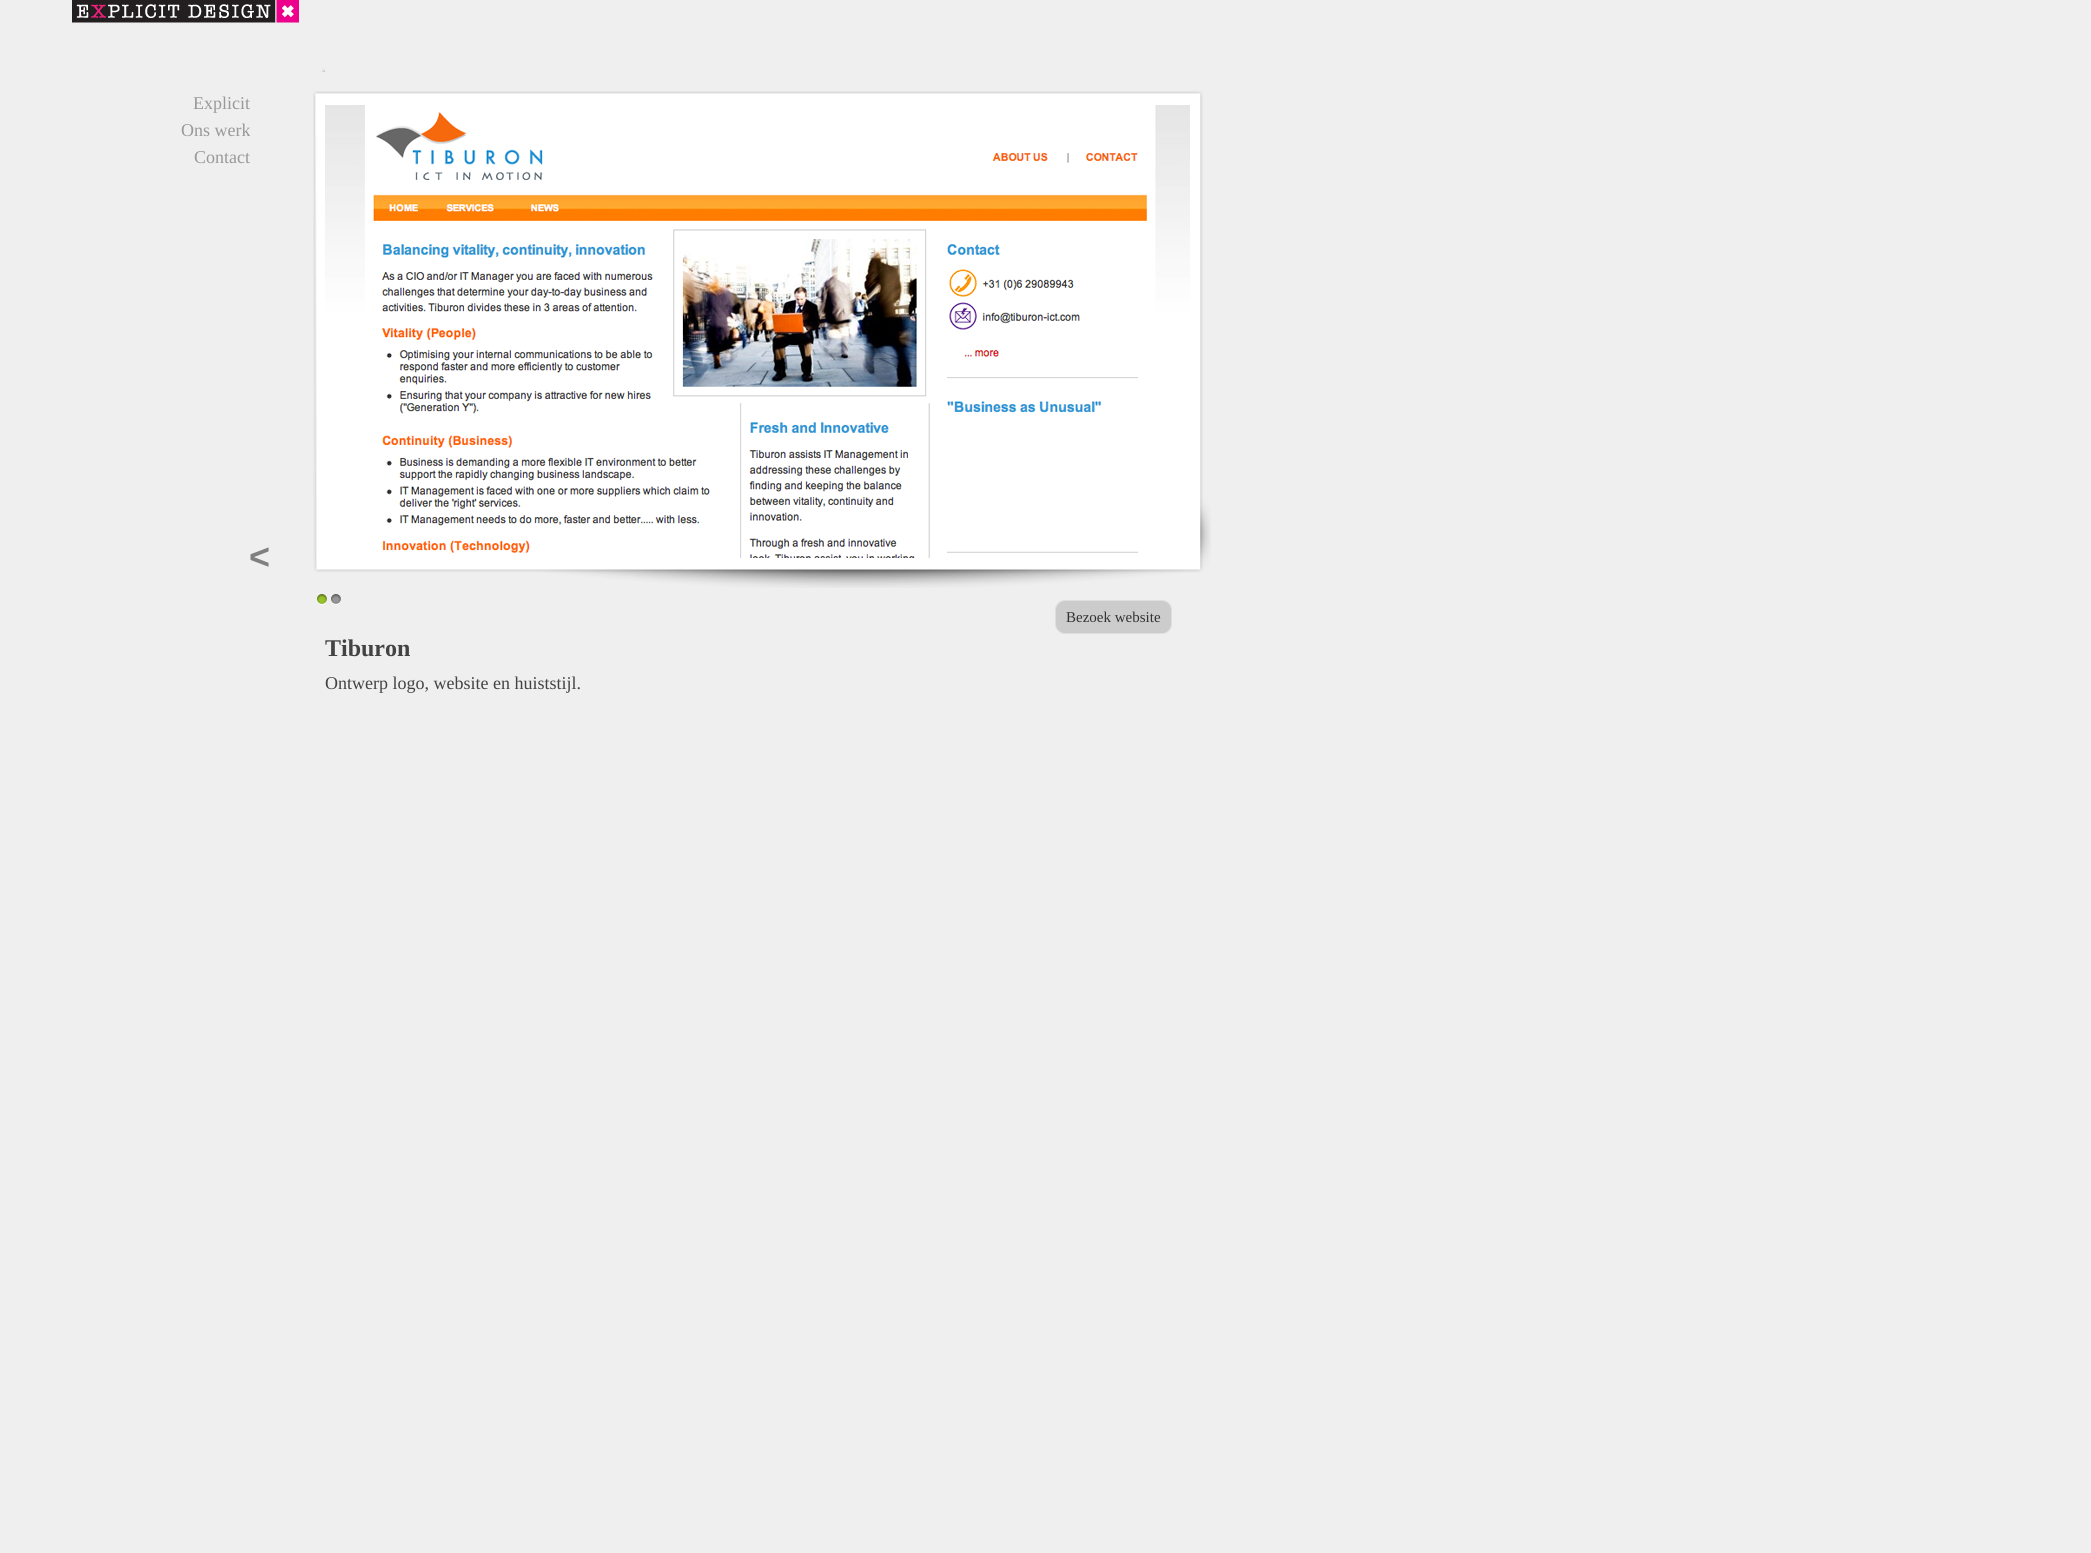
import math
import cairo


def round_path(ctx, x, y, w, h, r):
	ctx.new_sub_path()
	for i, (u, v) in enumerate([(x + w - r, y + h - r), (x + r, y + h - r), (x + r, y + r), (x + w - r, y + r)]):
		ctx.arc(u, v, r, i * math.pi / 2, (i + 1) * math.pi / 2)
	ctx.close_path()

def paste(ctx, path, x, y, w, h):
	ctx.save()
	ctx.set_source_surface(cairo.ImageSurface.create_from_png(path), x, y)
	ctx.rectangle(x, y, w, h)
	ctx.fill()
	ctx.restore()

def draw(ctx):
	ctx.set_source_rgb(0.937, 0.937, 0.937)
	ctx.paint()
	paste(ctx, 'media/1.png', 72, 0, 253, 72)
	ctx.select_font_face('Liberation Serif')
	ctx.set_font_size(18)
	ctx.set_source_rgb(0.6, 0.6, 0.6)
	for x, y, s in [
		(193, 109, 'Explicit'),
		(181, 136, 'Ons werk'),
		(194, 163, 'Contact'),
	]:
		ctx.move_to(x, y)
		ctx.show_text(s)
	ctx.select_font_face('Liberation Sans', cairo.FONT_SLANT_NORMAL, cairo.FONT_WEIGHT_BOLD)
	ctx.set_font_size(36)
	ctx.set_source_rgb(0.502, 0.502, 0.502)
	ctx.move_to(249, 569)
	ctx.show_text('<')
	paste(ctx, 'media/2.png', 313, 91, 898, 497)
	paste(ctx, 'media/3.png', 325, 105, 865, 453)
	paste(ctx, 'media/4.png', 317, 594, 10, 11)
	paste(ctx, 'media/5.png', 331, 594, 10, 11)
	ctx.set_source_rgb(0.8, 0.8, 0.8)
	round_path(ctx, 1055.5, 600.5, 116, 33, 9.5)
	ctx.fill_preserve()
	ctx.set_source_rgb(0.875, 0.875, 0.875)
	ctx.set_line_width(1)
	ctx.stroke()
	ctx.select_font_face('Liberation Serif')
	ctx.set_font_size(15)
	ctx.set_source_rgb(0.2, 0.2, 0.2)
	ctx.move_to(1066, 622)
	ctx.show_text('Bezoek website')
	ctx.select_font_face('Liberation Serif', cairo.FONT_SLANT_NORMAL, cairo.FONT_WEIGHT_BOLD)
	ctx.set_font_size(24)
	ctx.set_source_rgb(0.263, 0.263, 0.263)
	ctx.move_to(325, 656)
	ctx.show_text('Tiburon')
	ctx.select_font_face('Liberation Serif')
	ctx.set_font_size(18)
	ctx.move_to(325, 689)
	ctx.show_text('Ontwerp logo, website en huiststijl.')


surface = cairo.ImageSurface(cairo.FORMAT_RGB24, 2091, 1553)
ctx = cairo.Context(surface)
options = cairo.FontOptions()
options.set_hint_metrics(cairo.HINT_METRICS_OFF)
options.set_hint_style(cairo.HINT_STYLE_NONE)
ctx.set_font_options(options)
ctx.set_miter_limit(4)
draw(ctx)
surface.write_to_png('image.png')
